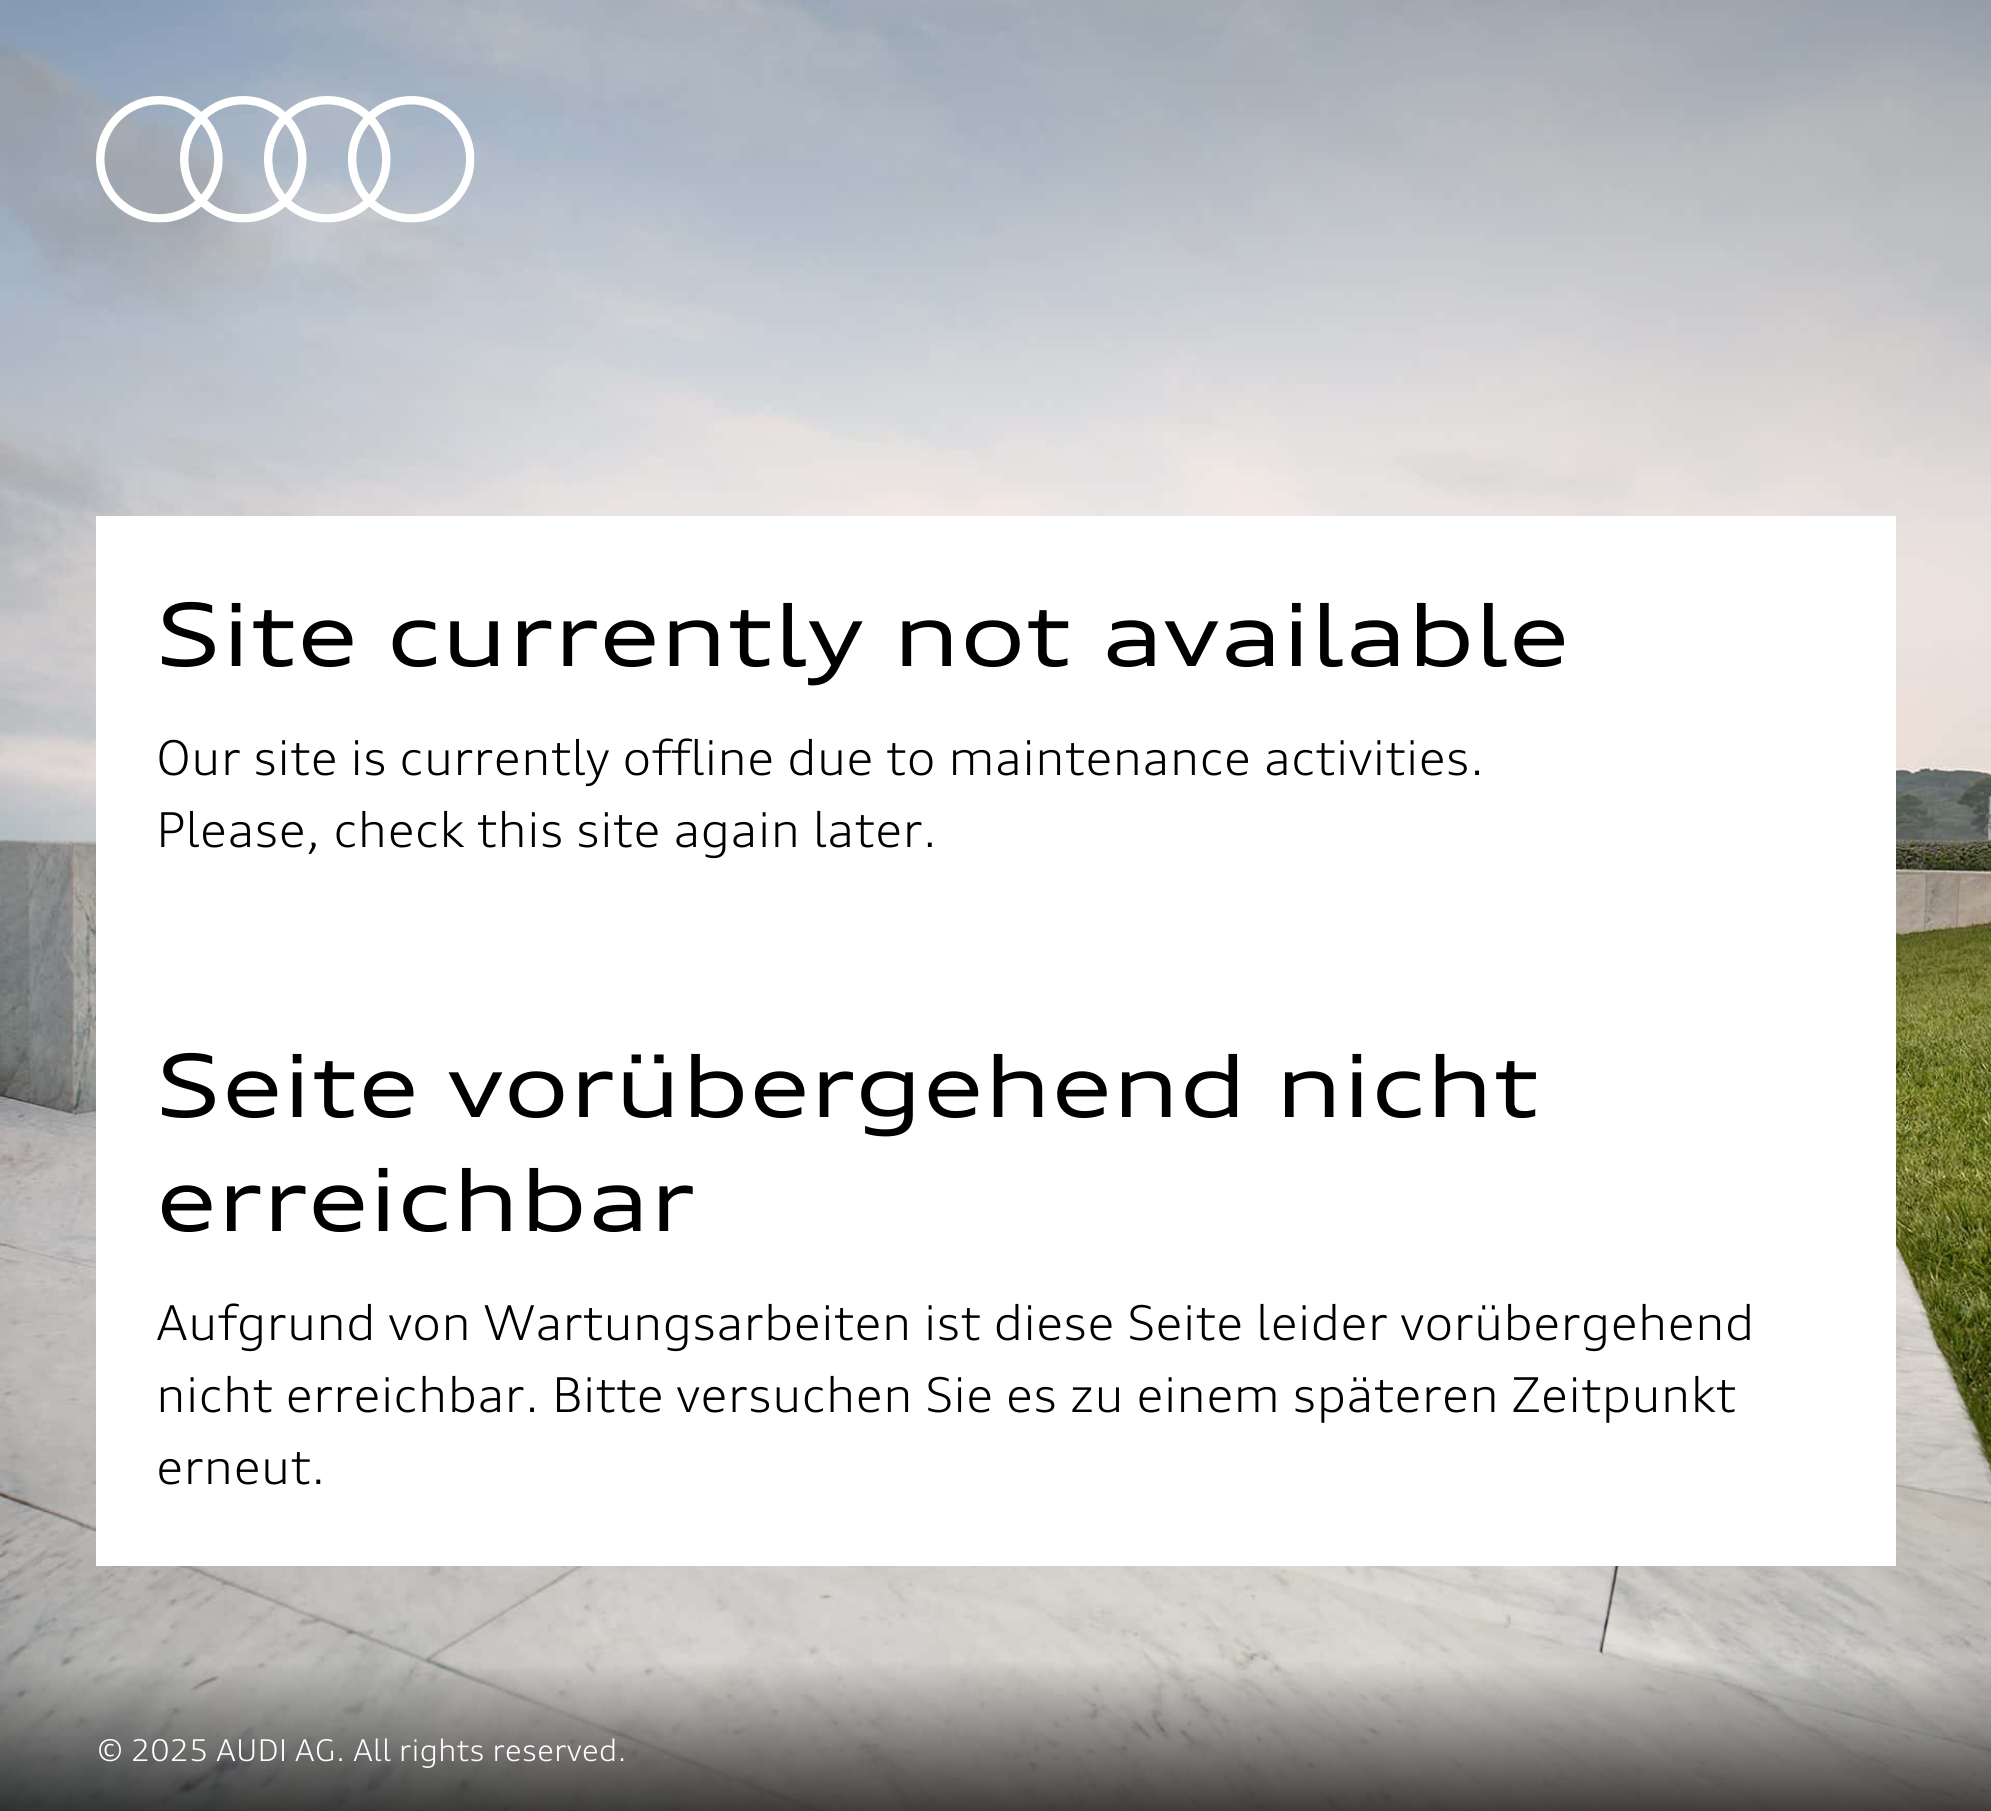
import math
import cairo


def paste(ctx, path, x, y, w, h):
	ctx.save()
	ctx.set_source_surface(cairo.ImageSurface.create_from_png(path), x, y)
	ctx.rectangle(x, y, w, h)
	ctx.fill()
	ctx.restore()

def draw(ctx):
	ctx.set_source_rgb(1, 1, 1)
	ctx.paint()
	paste(ctx, 'media/1.png', 0, 0, 1991, 1811)
	paste(ctx, 'media/2.png', 96, 96, 379, 127)
	ctx.set_source_rgb(1, 1, 1)
	ctx.rectangle(96, 516, 1800, 1050)
	ctx.fill()
	ctx.select_font_face('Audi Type')
	ctx.set_font_size(87.1)
	ctx.set_source_rgb(0, 0, 0)
	ctx.move_to(156, 666)
	ctx.show_text('Site currently not available')
	ctx.select_font_face('Audi Type Light')
	ctx.set_font_size(48)
	ctx.move_to(156, 775)
	ctx.show_text('Our site is currently offline due to maintenance activities.')
	ctx.move_to(156, 847)
	ctx.show_text('Please, check this site again later.')
	ctx.select_font_face('Audi Type')
	ctx.set_font_size(87.1)
	for x, y, s in [
		(156, 1117, 'Seite vorübergehend'),
		(1275, 1117, 'nicht'),
		(156, 1231, 'erreichbar'),
	]:
		ctx.move_to(x, y)
		ctx.show_text(s)
	ctx.select_font_face('Audi Type Light')
	ctx.set_font_size(48)
	for x, y, s in [
		(156, 1340, 'Aufgrund von Wartungsarbeiten ist diese Seite leider vorübergehend'),
		(156, 1412, 'nicht erreichbar. Bitte versuchen Sie es zu einem späteren Zeitpunkt'),
		(156, 1484, 'erneut.'),
	]:
		ctx.move_to(x, y)
		ctx.show_text(s)
	ctx.set_font_size(30)
	ctx.set_source_rgb(1, 1, 1)
	ctx.move_to(97, 1761)
	ctx.show_text('© 2025 AUDI AG. All rights reserved.')


surface = cairo.ImageSurface(cairo.FORMAT_RGB24, 1991, 1811)
ctx = cairo.Context(surface)
options = cairo.FontOptions()
options.set_hint_metrics(cairo.HINT_METRICS_OFF)
options.set_hint_style(cairo.HINT_STYLE_NONE)
ctx.set_font_options(options)
ctx.set_miter_limit(4)
draw(ctx)
surface.write_to_png('image.png')
